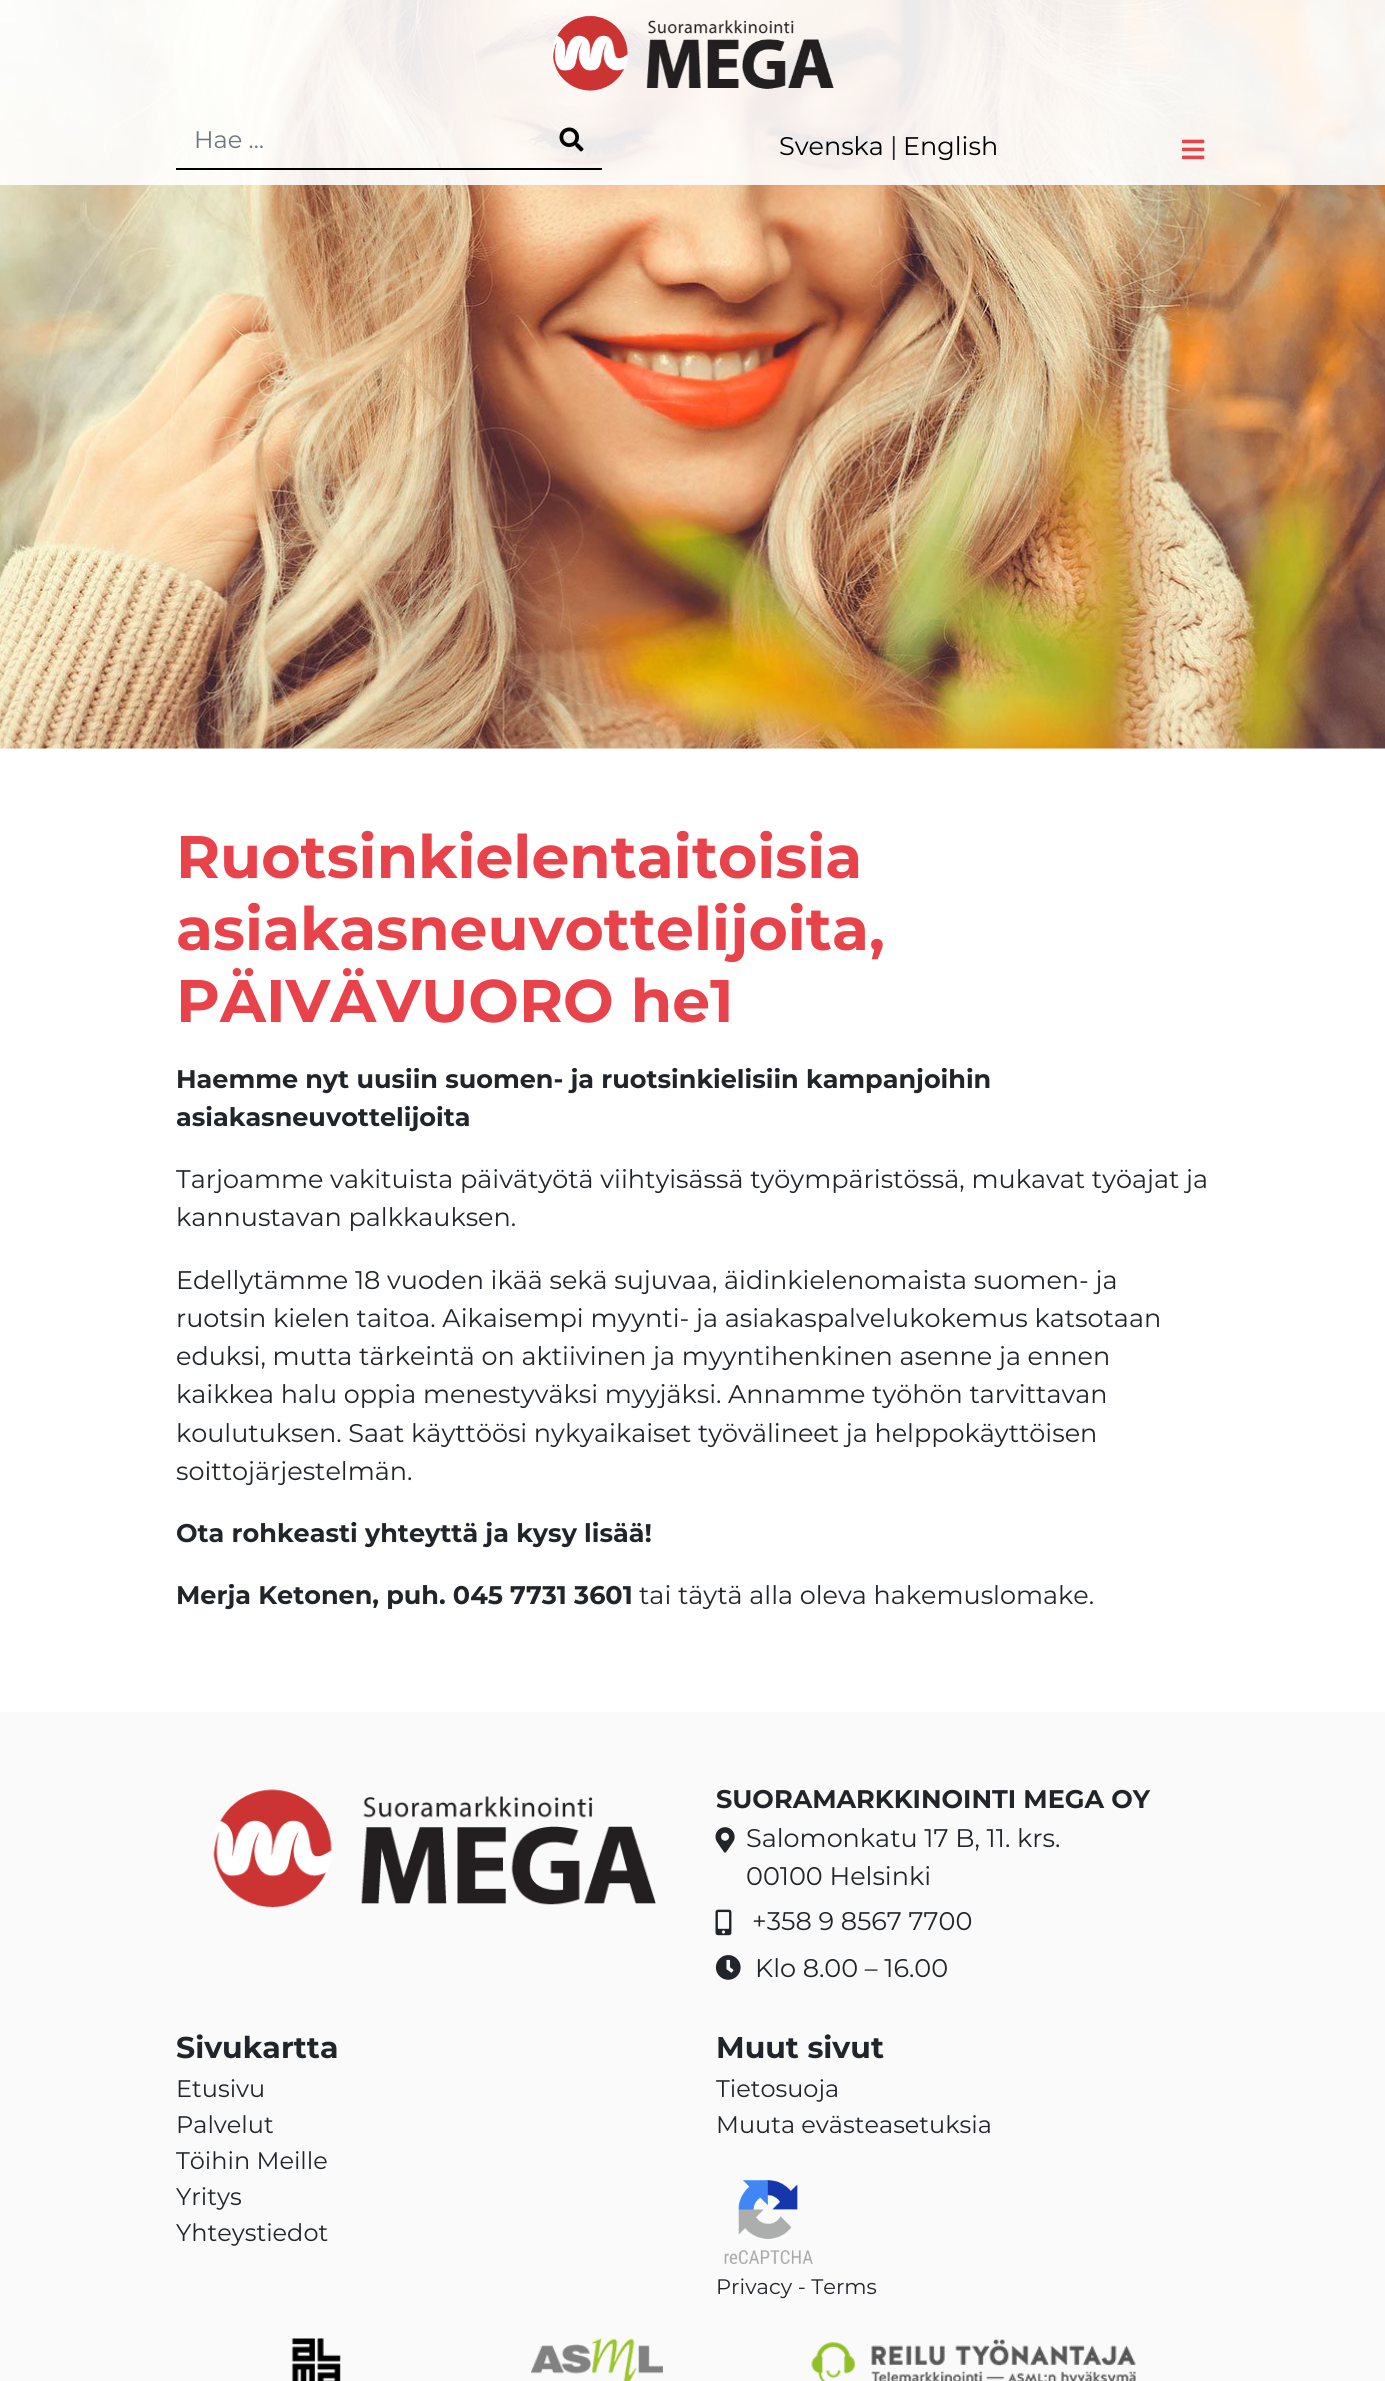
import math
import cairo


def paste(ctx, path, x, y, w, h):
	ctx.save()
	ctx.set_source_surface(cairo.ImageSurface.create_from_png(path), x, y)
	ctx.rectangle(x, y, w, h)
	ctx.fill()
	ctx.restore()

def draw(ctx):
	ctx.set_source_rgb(1, 1, 1)
	ctx.paint()
	paste(ctx, 'media/1.png', 0, 0, 1385, 749)
	ctx.set_source_rgba(1, 1, 1, 0.9)
	ctx.rectangle(0, 0, 1385, 185)
	ctx.fill()
	paste(ctx, 'media/2.png', 552, 15, 282, 76)
	ctx.set_source_rgb(0, 0, 0)
	ctx.rectangle(176, 168, 426, 2)
	ctx.fill()
	paste(ctx, 'media/3.png', 559, 127, 25, 25)
	ctx.select_font_face('Montserrat')
	ctx.set_font_size(24)
	ctx.set_source_rgb(0.424, 0.459, 0.49)
	ctx.move_to(194, 148)
	ctx.show_text('Hae …')
	ctx.set_font_size(25.5)
	ctx.set_source_rgb(0, 0, 0)
	ctx.move_to(779, 155)
	ctx.show_text('Svenska')
	ctx.set_source_rgb(0.129, 0.145, 0.161)
	ctx.move_to(890, 155)
	ctx.show_text('|')
	ctx.set_source_rgb(0, 0, 0)
	ctx.move_to(903, 155)
	ctx.show_text('English')
	paste(ctx, 'media/4.png', 1182, 139, 23, 21)
	ctx.select_font_face('Montserrat', cairo.FONT_SLANT_NORMAL, cairo.FONT_WEIGHT_BOLD)
	ctx.set_font_size(60)
	ctx.set_source_rgb(0.91, 0.263, 0.29)
	for x, y, s in [
		(176, 878, 'Ruotsinkielentaitoisia'),
		(176, 950, 'asiakasneuvottelijoita,'),
		(176, 1022, 'PÄIVÄVUORO he1'),
	]:
		ctx.move_to(x, y)
		ctx.show_text(s)
	ctx.set_font_size(25.5)
	ctx.set_source_rgb(0.129, 0.145, 0.161)
	ctx.move_to(176, 1088)
	ctx.show_text('Haemme nyt uusiin suomen- ja ruotsinkielisiin kampanjoihin')
	ctx.move_to(176, 1126)
	ctx.show_text('asiakasneuvottelijoita')
	ctx.select_font_face('Montserrat')
	for x, y, s in [
		(176, 1188, 'Tarjoamme vakituista päivätyötä viihtyisässä työympäristössä, mukavat työajat ja'),
		(176, 1226, 'kannustavan palkkauksen.'),
		(176, 1289, 'Edellytämme 18 vuoden ikää sekä sujuvaa, äidinkielenomaista suomen- ja'),
		(176, 1327, 'ruotsin kielen taitoa. Aikaisempi myynti- ja asiakaspalvelukokemus katsotaan'),
		(176, 1365, 'eduksi, mutta tärkeintä on aktiivinen ja myyntihenkinen asenne ja ennen'),
		(176, 1403, 'kaikkea halu oppia menestyväksi myyjäksi. Annamme työhön tarvittavan'),
		(176, 1442, 'koulutuksen. Saat käyttöösi nykyaikaiset työvälineet ja helppokäyttöisen'),
		(176, 1480, 'soittojärjestelmän.'),
	]:
		ctx.move_to(x, y)
		ctx.show_text(s)
	ctx.select_font_face('Montserrat', cairo.FONT_SLANT_NORMAL, cairo.FONT_WEIGHT_BOLD)
	ctx.move_to(176, 1542)
	ctx.show_text('Ota rohkeasti yhteyttä ja kysy lisää!')
	ctx.move_to(176, 1604)
	ctx.show_text('Merja Ketonen, puh. 045 7731 3601')
	ctx.select_font_face('Montserrat')
	ctx.move_to(639, 1604)
	ctx.show_text('tai täytä alla oleva hakemuslomake.')
	ctx.set_source_rgb(0.98, 0.98, 0.98)
	ctx.rectangle(0, 1712, 1385, 669)
	ctx.fill()
	paste(ctx, 'media/5.png', 213, 1789, 443, 119)
	ctx.select_font_face('Montserrat', cairo.FONT_SLANT_NORMAL, cairo.FONT_WEIGHT_BOLD)
	ctx.set_source_rgb(0.129, 0.145, 0.161)
	ctx.move_to(716, 1808)
	ctx.show_text('SUORAMARKKINOINTI MEGA OY')
	paste(ctx, 'media/6.png', 715, 1827, 20, 26)
	ctx.select_font_face('Montserrat')
	ctx.move_to(746, 1847)
	ctx.show_text('Salomonkatu 17 B, 11. krs.')
	ctx.move_to(746, 1885)
	ctx.show_text('00100 Helsinki')
	paste(ctx, 'media/7.png', 715, 1909, 17, 27)
	ctx.move_to(752, 1930)
	ctx.show_text('+358 9 8567 7700')
	paste(ctx, 'media/8.png', 715, 1955, 26, 25)
	ctx.move_to(755, 1977)
	ctx.show_text('Klo 8.00 – 16.00')
	ctx.select_font_face('Montserrat', cairo.FONT_SLANT_NORMAL, cairo.FONT_WEIGHT_BOLD)
	ctx.set_font_size(30)
	ctx.move_to(176, 2058)
	ctx.show_text('Sivukartta')
	ctx.select_font_face('Montserrat')
	ctx.set_font_size(24)
	for x, y, s in [
		(176, 2097, 'Etusivu'),
		(176, 2133, 'Palvelut'),
		(176, 2169, 'Töihin Meille'),
		(176, 2205, 'Yritys'),
		(176, 2241, 'Yhteystiedot'),
	]:
		ctx.move_to(x, y)
		ctx.show_text(s)
	ctx.select_font_face('Montserrat', cairo.FONT_SLANT_NORMAL, cairo.FONT_WEIGHT_BOLD)
	ctx.set_font_size(30)
	ctx.move_to(716, 2058)
	ctx.show_text('Muut sivut')
	ctx.select_font_face('Montserrat')
	ctx.set_font_size(24)
	ctx.move_to(716, 2097)
	ctx.show_text('Tietosuoja')
	ctx.move_to(716, 2133)
	ctx.show_text('Muuta evästeasetuksia')
	paste(ctx, 'media/9.png', 724, 2180, 89, 84)
	ctx.set_font_size(21)
	ctx.move_to(716, 2294)
	ctx.show_text('Privacy - Terms')
	paste(ctx, 'media/10.png', 291, 2338, 50, 43)
	paste(ctx, 'media/11.png', 531, 2338, 132, 43)
	paste(ctx, 'media/12.png', 811, 2339, 325, 42)


surface = cairo.ImageSurface(cairo.FORMAT_RGB24, 1385, 2381)
ctx = cairo.Context(surface)
options = cairo.FontOptions()
options.set_hint_metrics(cairo.HINT_METRICS_OFF)
options.set_hint_style(cairo.HINT_STYLE_NONE)
ctx.set_font_options(options)
ctx.set_miter_limit(4)
draw(ctx)
surface.write_to_png('image.png')
